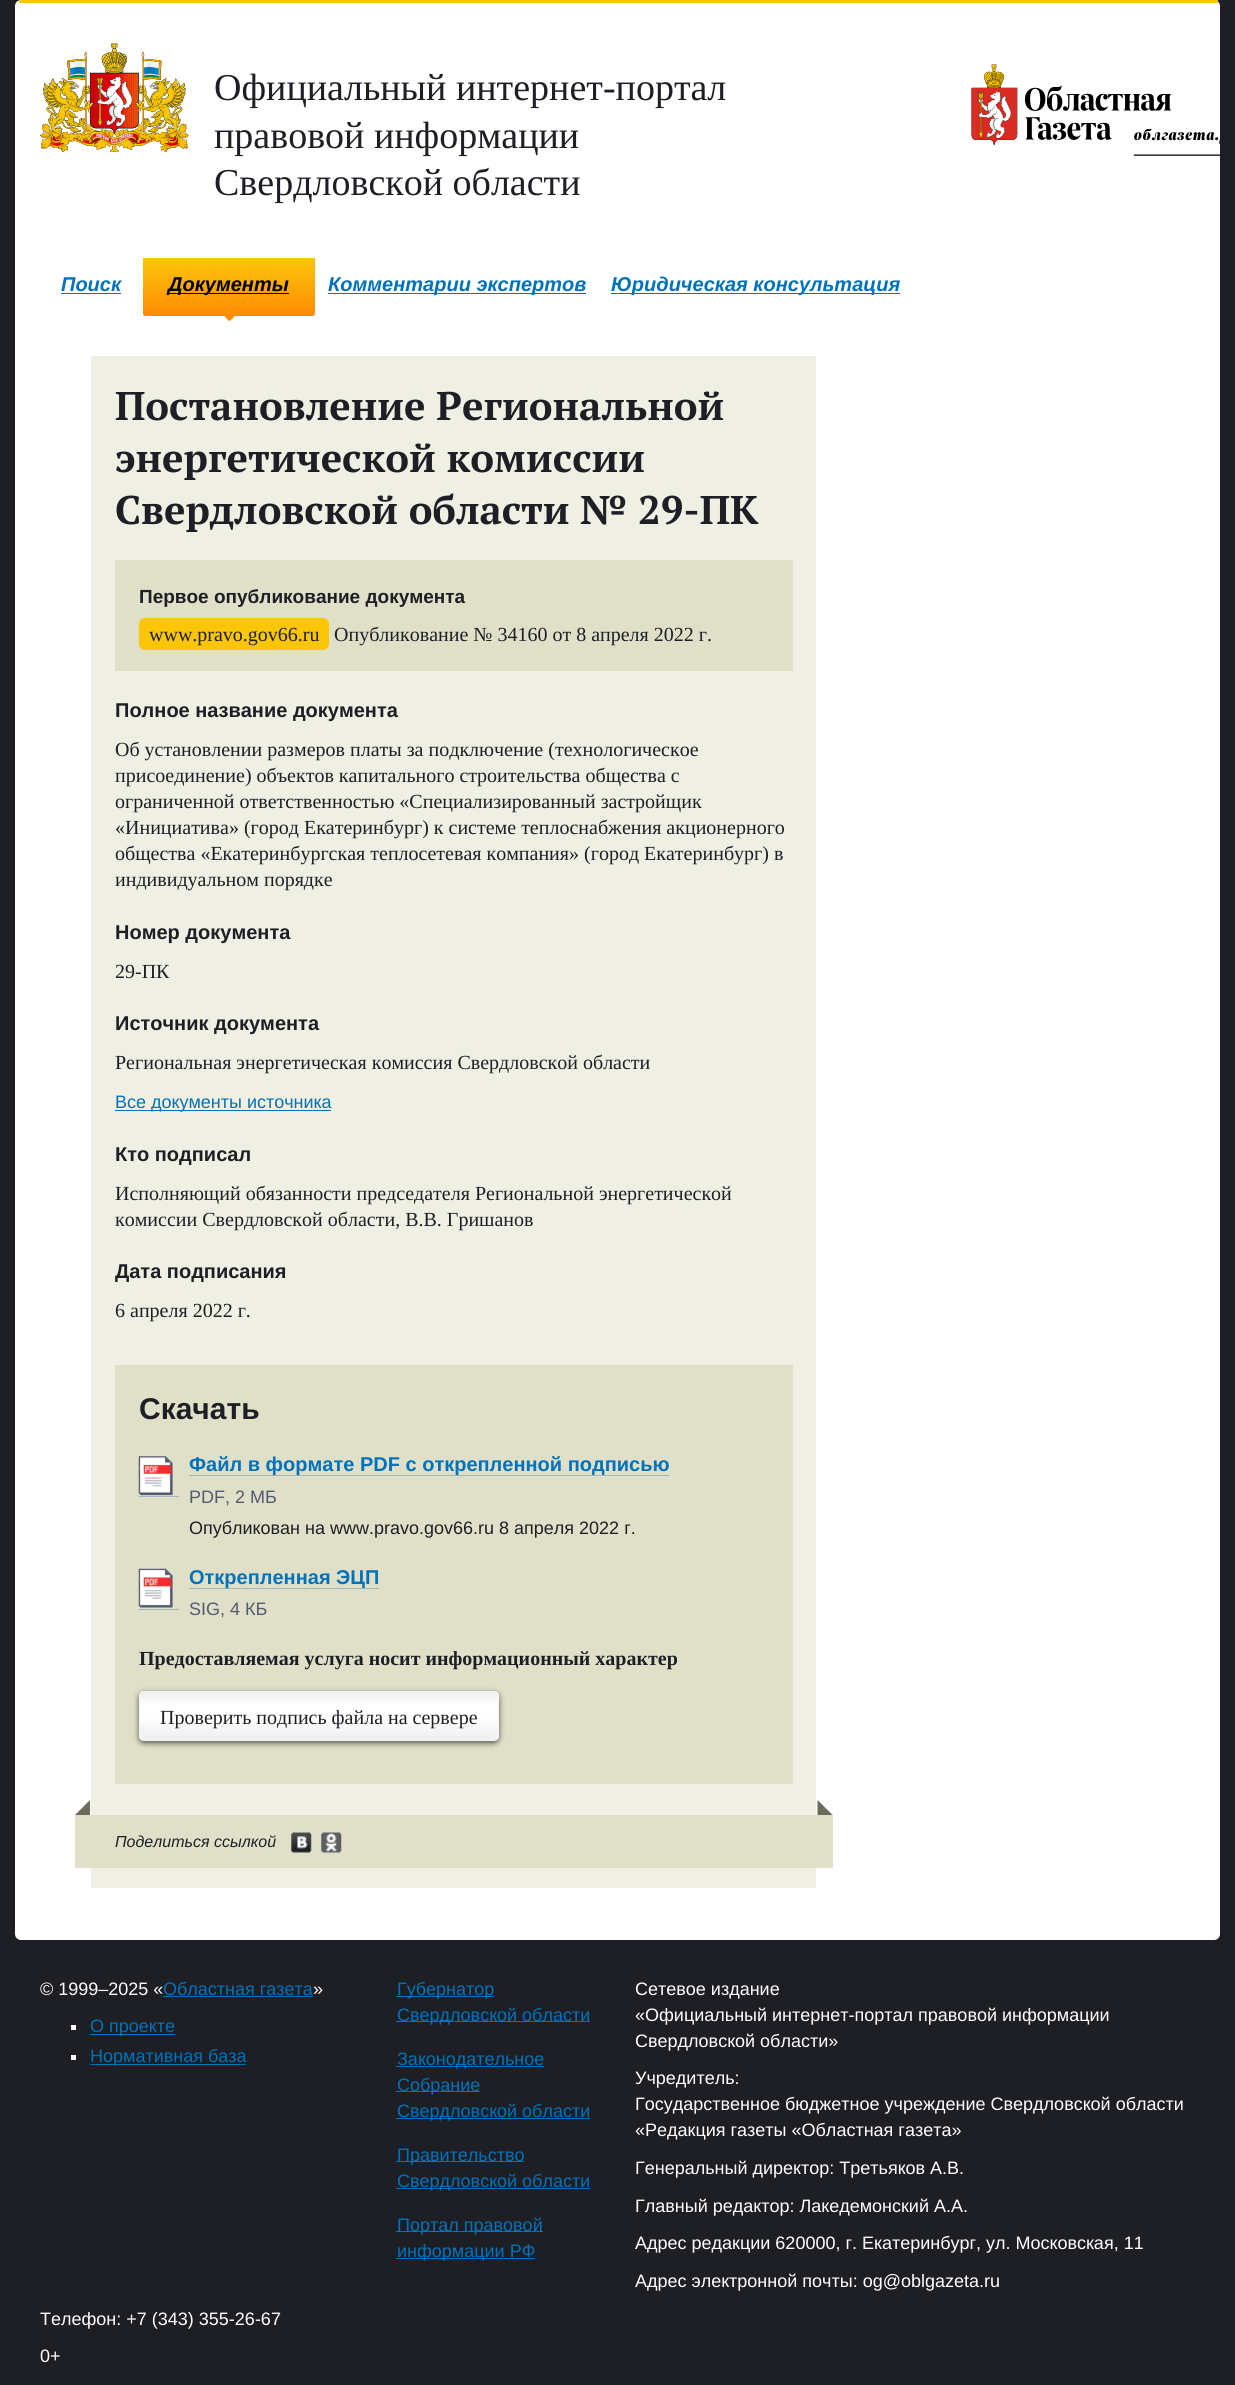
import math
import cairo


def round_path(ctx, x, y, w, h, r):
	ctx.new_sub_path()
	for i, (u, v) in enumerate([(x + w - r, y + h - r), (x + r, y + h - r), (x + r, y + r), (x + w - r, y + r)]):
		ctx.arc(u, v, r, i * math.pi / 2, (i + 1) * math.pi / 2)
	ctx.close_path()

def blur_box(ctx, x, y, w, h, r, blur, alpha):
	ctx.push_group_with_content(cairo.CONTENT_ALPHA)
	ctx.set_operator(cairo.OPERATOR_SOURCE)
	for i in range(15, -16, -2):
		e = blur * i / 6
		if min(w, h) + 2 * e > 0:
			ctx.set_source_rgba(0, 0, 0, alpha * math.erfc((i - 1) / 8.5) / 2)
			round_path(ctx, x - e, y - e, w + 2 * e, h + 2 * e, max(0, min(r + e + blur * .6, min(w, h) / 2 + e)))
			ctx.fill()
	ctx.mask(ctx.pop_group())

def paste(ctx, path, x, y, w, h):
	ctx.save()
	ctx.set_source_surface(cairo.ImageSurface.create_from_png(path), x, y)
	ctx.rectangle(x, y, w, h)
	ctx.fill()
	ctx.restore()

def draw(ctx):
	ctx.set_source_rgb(0.118, 0.122, 0.145)
	ctx.paint()
	ctx.set_source_rgb(1, 1, 1)
	round_path(ctx, 15, 0, 1205, 1940, 6)
	ctx.fill()
	ctx.set_source_rgb(0.984, 0.776, 0.035)
	ctx.rectangle(19, 0, 1199, 3)
	ctx.fill()
	paste(ctx, 'media/1.png', 40, 43, 149, 110)
	ctx.select_font_face('Liberation Serif')
	ctx.set_font_size(38)
	ctx.set_source_rgb(0.118, 0.122, 0.145)
	for x, y, s in [
		(214, 100, 'Официальный интернет-портал'),
		(214, 148, 'правовой информации'),
		(214, 195, 'Свердловской области'),
	]:
		ctx.move_to(x, y)
		ctx.show_text(s)
	paste(ctx, 'media/2.png', 971, 64, 249, 92)
	ctx.select_font_face('Liberation Sans', cairo.FONT_SLANT_ITALIC, cairo.FONT_WEIGHT_BOLD)
	ctx.set_font_size(20)
	ctx.set_source_rgb(0, 0.447, 0.737)
	ctx.move_to(61, 291)
	ctx.show_text('Поиск')
	ctx.rectangle(61, 293, 60, 1)
	ctx.fill()
	gradient = cairo.LinearGradient(147, 258, 147, 316)
	gradient.add_color_stop_rgba(0, 0.984, 0.776, 0.035, 1)
	gradient.add_color_stop_rgba(1, 1, 0.545, 0.004, 1)
	ctx.set_source(gradient)
	ctx.new_path()
	ctx.move_to(143, 258)
	ctx.line_to(151, 258)
	ctx.line_to(151, 316)
	ctx.line_to(145.5, 316)
	ctx.curve_to(144, 316, 143, 315, 143, 313.5)
	ctx.close_path()
	ctx.fill()
	gradient = cairo.LinearGradient(229, 258, 229, 316)
	gradient.add_color_stop_rgba(0, 0.984, 0.776, 0.035, 1)
	gradient.add_color_stop_rgba(1, 1, 0.545, 0.004, 1)
	ctx.set_source(gradient)
	ctx.rectangle(151, 258, 155, 58)
	ctx.fill()
	ctx.set_source_rgb(0, 0, 0)
	ctx.rectangle(169, 293, 120, 1)
	ctx.fill()
	ctx.move_to(168, 291)
	ctx.show_text('Документы')
	ctx.set_source_rgb(1, 0.545, 0.004)
	ctx.rectangle(225, 316, 9, 5)
	ctx.fill()
	paste(ctx, 'media/3.png', 225, 317, 9, 4)
	gradient = cairo.LinearGradient(311, 258, 311, 316)
	gradient.add_color_stop_rgba(0, 0.984, 0.776, 0.035, 1)
	gradient.add_color_stop_rgba(1, 1, 0.545, 0.004, 1)
	ctx.set_source(gradient)
	ctx.new_path()
	ctx.move_to(306, 258)
	ctx.line_to(315, 258)
	ctx.line_to(315, 313.5)
	ctx.curve_to(315, 315, 314, 316, 312.5, 316)
	ctx.line_to(306, 316)
	ctx.close_path()
	ctx.fill()
	ctx.set_source_rgb(0, 0.447, 0.737)
	ctx.rectangle(328, 293, 258, 1)
	ctx.fill()
	ctx.move_to(328, 291)
	ctx.show_text('Комментарии экспертов')
	ctx.rectangle(611, 293, 289, 1)
	ctx.fill()
	ctx.move_to(611, 291)
	ctx.show_text('Юридическая консультация')
	ctx.set_source_rgb(0.937, 0.937, 0.894)
	ctx.rectangle(91, 356, 725, 1532)
	ctx.fill()
	ctx.select_font_face('PT Serif', cairo.FONT_SLANT_NORMAL, cairo.FONT_WEIGHT_BOLD)
	ctx.set_font_size(40)
	ctx.set_source_rgb(0.118, 0.122, 0.145)
	for x, y, s in [
		(115, 420, 'Постановление Региональной'),
		(115, 472, 'энергетической комиссии'),
		(115, 524, 'Свердловской области № 29-ПК'),
	]:
		ctx.move_to(x, y)
		ctx.show_text(s)
	ctx.set_source_rgb(0.878, 0.878, 0.788)
	ctx.rectangle(115, 560, 678, 111)
	ctx.fill()
	ctx.select_font_face('Liberation Sans', cairo.FONT_SLANT_NORMAL, cairo.FONT_WEIGHT_BOLD)
	ctx.set_font_size(19)
	ctx.set_source_rgb(0.118, 0.122, 0.145)
	ctx.move_to(139, 603)
	ctx.show_text('Первое опубликование документа')
	ctx.set_source_rgb(0.984, 0.776, 0.035)
	round_path(ctx, 139, 618, 190, 32, 6)
	ctx.fill()
	ctx.select_font_face('Liberation Serif')
	ctx.set_font_size(20)
	ctx.set_source_rgb(0.118, 0.122, 0.145)
	ctx.move_to(149, 641)
	ctx.show_text('www.pravo.gov66.ru')
	ctx.move_to(334, 641)
	ctx.show_text('Опубликование № 34160 от 8 апреля 2022 г.')
	ctx.select_font_face('Liberation Sans', cairo.FONT_SLANT_NORMAL, cairo.FONT_WEIGHT_BOLD)
	ctx.move_to(115, 717)
	ctx.show_text('Полное название документа')
	ctx.select_font_face('Liberation Serif')
	for x, y, s in [
		(115, 756, 'Об установлении размеров платы за подключение (технологическое'),
		(115, 782, 'присоединение) объектов капитального строительства общества с'),
		(115, 808, 'ограниченной ответственностью «Специализированный застройщик'),
		(115, 834, '«Инициатива» (город Екатеринбург) к системе теплоснабжения акционерного'),
		(115, 860, 'общества «Екатеринбургская теплосетевая компания» (город Екатеринбург) в'),
		(115, 886, 'индивидуальном порядке'),
	]:
		ctx.move_to(x, y)
		ctx.show_text(s)
	ctx.select_font_face('Liberation Sans', cairo.FONT_SLANT_NORMAL, cairo.FONT_WEIGHT_BOLD)
	ctx.move_to(115, 939)
	ctx.show_text('Номер документа')
	ctx.select_font_face('Liberation Serif')
	ctx.move_to(115, 978)
	ctx.show_text('29-ПК')
	ctx.select_font_face('Liberation Sans', cairo.FONT_SLANT_NORMAL, cairo.FONT_WEIGHT_BOLD)
	ctx.move_to(115, 1030)
	ctx.show_text('Источник документа')
	ctx.select_font_face('Liberation Serif')
	ctx.move_to(115, 1069)
	ctx.show_text('Региональная энергетическая комиссия Свердловской области')
	ctx.set_source_rgb(0, 0.447, 0.737)
	ctx.rectangle(115, 1110, 216, 1)
	ctx.fill()
	ctx.select_font_face('Liberation Sans')
	ctx.set_font_size(18)
	ctx.move_to(115, 1108)
	ctx.show_text('Все документы источника')
	ctx.select_font_face('Liberation Sans', cairo.FONT_SLANT_NORMAL, cairo.FONT_WEIGHT_BOLD)
	ctx.set_font_size(20)
	ctx.set_source_rgb(0.118, 0.122, 0.145)
	ctx.move_to(115, 1161)
	ctx.show_text('Кто подписал')
	ctx.select_font_face('Liberation Serif')
	ctx.move_to(115, 1200)
	ctx.show_text('Исполняющий обязанности председателя Региональной энергетической')
	ctx.move_to(115, 1226)
	ctx.show_text('комиссии Свердловской области, В.В. Гришанов')
	ctx.select_font_face('Liberation Sans', cairo.FONT_SLANT_NORMAL, cairo.FONT_WEIGHT_BOLD)
	ctx.move_to(115, 1278)
	ctx.show_text('Дата подписания')
	ctx.select_font_face('Liberation Serif')
	ctx.move_to(115, 1317)
	ctx.show_text('6 апреля 2022 г.')
	ctx.set_source_rgb(0.878, 0.878, 0.788)
	ctx.rectangle(115, 1365, 678, 419)
	ctx.fill()
	ctx.select_font_face('Liberation Sans', cairo.FONT_SLANT_NORMAL, cairo.FONT_WEIGHT_BOLD)
	ctx.set_font_size(30)
	ctx.set_source_rgb(0.118, 0.122, 0.145)
	ctx.move_to(139, 1419)
	ctx.show_text('Скачать')
	ctx.set_source_rgb(0.616, 0.722, 0.757)
	ctx.rectangle(139, 1496, 40, 1)
	ctx.fill()
	ctx.rectangle(189, 1475, 480, 1)
	ctx.fill()
	paste(ctx, 'media/4.png', 138, 1456, 35, 40)
	ctx.set_font_size(20)
	ctx.set_source_rgb(0, 0.447, 0.737)
	ctx.move_to(189, 1471)
	ctx.show_text('Файл в формате PDF с открепленной подписью')
	ctx.select_font_face('Liberation Sans')
	ctx.set_font_size(18)
	ctx.set_source_rgb(0.329, 0.349, 0.435)
	ctx.move_to(189, 1503)
	ctx.show_text('PDF, 2 МБ')
	ctx.set_source_rgb(0.118, 0.122, 0.145)
	ctx.move_to(189, 1534)
	ctx.show_text('Опубликован на www.pravo.gov66.ru 8 апреля 2022 г.')
	ctx.set_source_rgb(0.616, 0.722, 0.757)
	ctx.rectangle(139, 1609, 40, 1)
	ctx.fill()
	ctx.rectangle(189, 1588, 190, 1)
	ctx.fill()
	paste(ctx, 'media/5.png', 138, 1568, 35, 40)
	ctx.select_font_face('Liberation Sans', cairo.FONT_SLANT_NORMAL, cairo.FONT_WEIGHT_BOLD)
	ctx.set_font_size(20)
	ctx.set_source_rgb(0, 0.447, 0.737)
	ctx.move_to(189, 1584)
	ctx.show_text('Открепленная ЭЦП')
	ctx.select_font_face('Liberation Sans')
	ctx.set_font_size(18)
	ctx.set_source_rgb(0.329, 0.349, 0.435)
	ctx.move_to(189, 1615)
	ctx.show_text('SIG, 4 КБ')
	ctx.select_font_face('Liberation Serif', cairo.FONT_SLANT_NORMAL, cairo.FONT_WEIGHT_BOLD)
	ctx.set_font_size(20)
	ctx.set_source_rgb(0.118, 0.122, 0.145)
	ctx.move_to(139, 1665)
	ctx.show_text('Предоставляемая услуга носит информационный характер')
	ctx.set_source_rgb(0.322, 0.322, 0.294)
	blur_box(ctx, 139, 1693, 360, 50, 5, 3, 1)
	gradient = cairo.LinearGradient(319, 1645, 319, 1693)
	gradient.add_color_stop_rgba(0, 0.937, 0.937, 0.937, 1)
	gradient.add_color_stop_rgba(0.25, 1, 1, 1, 1)
	gradient.add_color_stop_rgba(0.5, 1, 1, 1, 1)
	gradient.add_color_stop_rgba(0.75, 0.965, 0.965, 0.965, 1)
	gradient.add_color_stop_rgba(1, 0.937, 0.937, 0.937, 1)
	ctx.set_source(gradient)
	ctx.new_path()
	ctx.move_to(144, 1691)
	ctx.curve_to(142, 1691, 141, 1692, 140, 1693)
	ctx.line_to(498, 1693)
	ctx.curve_to(497, 1692, 496, 1691, 494, 1691)
	ctx.close_path()
	ctx.fill()
	gradient = cairo.LinearGradient(319, 1693, 319, 1740)
	gradient.add_color_stop_rgba(0, 0.937, 0.937, 0.937, 1)
	gradient.add_color_stop_rgba(0.25, 1, 1, 1, 1)
	gradient.add_color_stop_rgba(0.5, 1, 1, 1, 1)
	gradient.add_color_stop_rgba(0.75, 0.965, 0.965, 0.965, 1)
	gradient.add_color_stop_rgba(1, 0.937, 0.937, 0.937, 1)
	ctx.set_source(gradient)
	ctx.new_path()
	ctx.move_to(139, 1696)
	ctx.line_to(139, 1736)
	ctx.curve_to(139, 1738, 140, 1739, 141, 1740)
	ctx.line_to(497, 1740)
	ctx.line_to(499, 1737)
	ctx.line_to(499, 1703)
	ctx.curve_to(499, 1700, 500, 1696, 498, 1693)
	ctx.line_to(140, 1693)
	ctx.close_path()
	ctx.fill()
	round_path(ctx, 139.5, 1691.5, 359, 49, 4.5)
	ctx.set_source_rgb(0.957, 0.957, 0.957)
	ctx.set_line_width(1)
	ctx.stroke()
	ctx.select_font_face('Liberation Serif')
	ctx.set_source_rgb(0.118, 0.122, 0.145)
	ctx.move_to(160, 1724)
	ctx.show_text('Проверить подпись файла на сервере')
	ctx.set_source_rgb(0.878, 0.878, 0.788)
	ctx.rectangle(75, 1815, 758, 53)
	ctx.fill()
	ctx.set_source_rgb(0.424, 0.424, 0.353)
	ctx.new_path()
	ctx.move_to(90, 1815)
	ctx.line_to(75, 1815)
	ctx.line_to(90, 1800)
	ctx.close_path()
	ctx.fill()
	ctx.new_path()
	ctx.move_to(832.5, 1815)
	ctx.line_to(817.5, 1815)
	ctx.line_to(817.5, 1800)
	ctx.close_path()
	ctx.fill()
	ctx.select_font_face('Liberation Sans', cairo.FONT_SLANT_ITALIC)
	ctx.set_font_size(16)
	ctx.set_source_rgb(0.118, 0.122, 0.145)
	ctx.move_to(115, 1847)
	ctx.show_text('Поделиться ссылкой')
	paste(ctx, 'media/6.png', 291, 1832, 21, 21)
	paste(ctx, 'media/7.png', 321, 1832, 21, 21)
	ctx.select_font_face('Liberation Sans')
	ctx.set_font_size(18)
	ctx.set_source_rgb(1, 1, 1)
	ctx.move_to(40, 1995)
	ctx.show_text('© 1999–2025 «')
	ctx.set_source_rgb(0, 0.447, 0.737)
	ctx.move_to(163, 1995)
	ctx.show_text('Областная газета')
	ctx.rectangle(163, 1996, 150, 1)
	ctx.fill()
	ctx.set_source_rgb(1, 1, 1)
	ctx.move_to(313, 1995)
	ctx.show_text('»')
	ctx.rectangle(71, 2025, 5, 5)
	ctx.fill()
	ctx.set_source_rgb(0, 0.447, 0.737)
	ctx.rectangle(90, 2034, 85, 1)
	ctx.fill()
	ctx.move_to(90, 2032)
	ctx.show_text('О проекте')
	ctx.set_source_rgb(1, 1, 1)
	ctx.rectangle(71, 2055, 5, 5)
	ctx.fill()
	ctx.set_source_rgb(0, 0.447, 0.737)
	ctx.rectangle(90, 2064, 156, 1)
	ctx.fill()
	ctx.move_to(90, 2062)
	ctx.show_text('Нормативная база')
	ctx.rectangle(396, 1996, 98, 1)
	ctx.fill()
	ctx.move_to(397, 1995)
	ctx.show_text('Губернатор')
	ctx.rectangle(396, 2021, 194, 1)
	ctx.fill()
	ctx.move_to(397, 2021)
	ctx.show_text('Свердловской области')
	ctx.rectangle(396, 2066, 148, 1)
	ctx.fill()
	ctx.move_to(397, 2065)
	ctx.show_text('Законодательное')
	ctx.rectangle(396, 2091, 84, 1)
	ctx.fill()
	ctx.move_to(397, 2091)
	ctx.show_text('Собрание')
	ctx.rectangle(396, 2118, 194, 1)
	ctx.fill()
	ctx.move_to(397, 2117)
	ctx.show_text('Свердловской области')
	ctx.rectangle(396, 2161, 128, 1)
	ctx.fill()
	ctx.move_to(397, 2161)
	ctx.show_text('Правительство')
	ctx.rectangle(396, 2188, 194, 1)
	ctx.fill()
	ctx.move_to(397, 2187)
	ctx.show_text('Свердловской области')
	ctx.rectangle(396, 2231, 147, 1)
	ctx.fill()
	ctx.move_to(397, 2231)
	ctx.show_text('Портал правовой')
	ctx.rectangle(396, 2258, 139, 1)
	ctx.fill()
	ctx.move_to(397, 2257)
	ctx.show_text('информации РФ')
	ctx.set_source_rgb(1, 1, 1)
	for x, y, s in [
		(635, 1995, 'Сетевое издание'),
		(635, 2021, '«Официальный интернет-портал правовой информации'),
		(635, 2047, 'Свердловской области»'),
		(635, 2084, 'Учредитель:'),
		(635, 2110, 'Государственное бюджетное учреждение Свердловской области'),
		(635, 2136, '«Редакция газеты «Областная газета»'),
		(635, 2174, 'Генеральный директор: Третьяков А.В.'),
		(635, 2212, 'Главный редактор: Лакедемонский А.А.'),
		(635, 2249, 'Адрес редакции 620000, г. Екатеринбург, ул. Московская, 11'),
		(635, 2287, 'Адрес электронной почты: og@oblgazeta.ru'),
		(40, 2325, 'Телефон: +7 (343) 355-26-67'),
		(40, 2362, '0+'),
	]:
		ctx.move_to(x, y)
		ctx.show_text(s)


surface = cairo.ImageSurface(cairo.FORMAT_RGB24, 1235, 2385)
ctx = cairo.Context(surface)
options = cairo.FontOptions()
options.set_hint_metrics(cairo.HINT_METRICS_OFF)
options.set_hint_style(cairo.HINT_STYLE_NONE)
ctx.set_font_options(options)
ctx.set_miter_limit(4)
draw(ctx)
surface.write_to_png('image.png')
